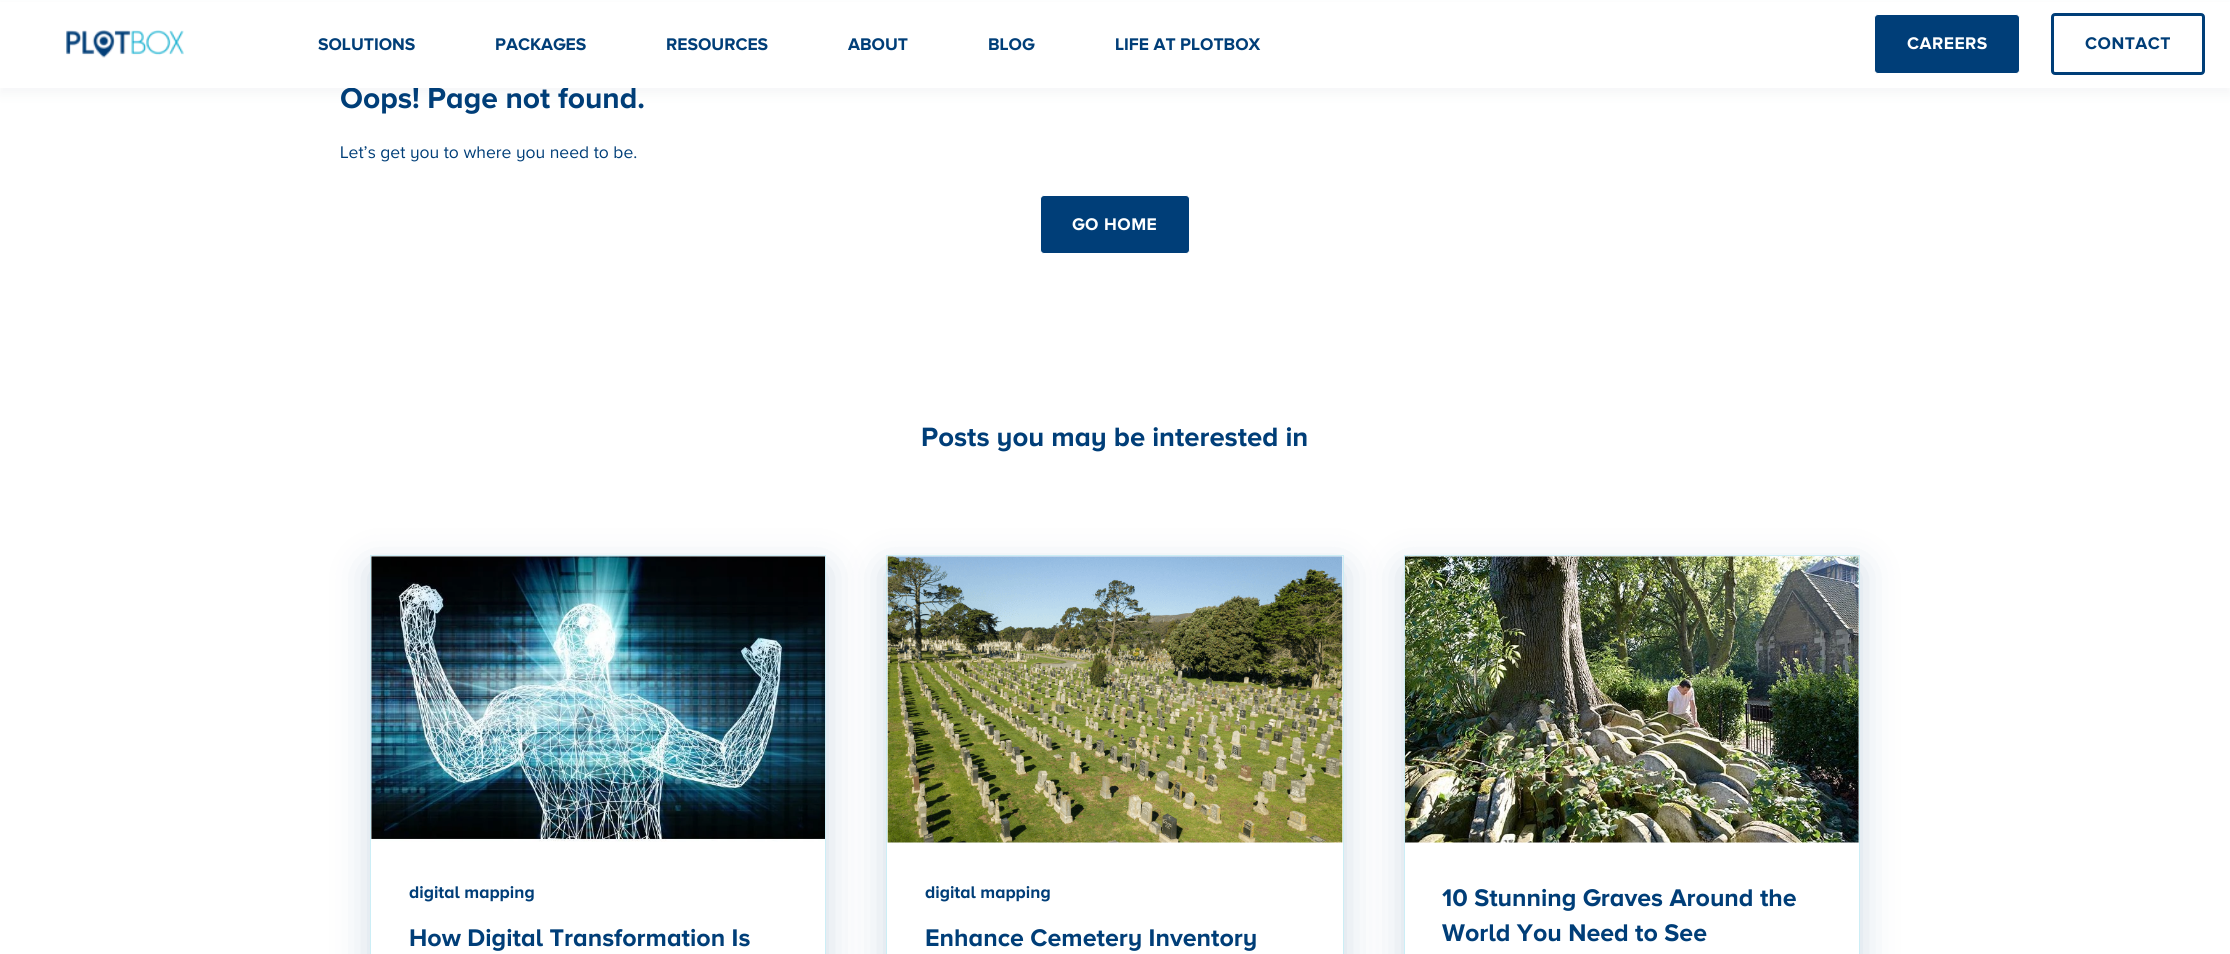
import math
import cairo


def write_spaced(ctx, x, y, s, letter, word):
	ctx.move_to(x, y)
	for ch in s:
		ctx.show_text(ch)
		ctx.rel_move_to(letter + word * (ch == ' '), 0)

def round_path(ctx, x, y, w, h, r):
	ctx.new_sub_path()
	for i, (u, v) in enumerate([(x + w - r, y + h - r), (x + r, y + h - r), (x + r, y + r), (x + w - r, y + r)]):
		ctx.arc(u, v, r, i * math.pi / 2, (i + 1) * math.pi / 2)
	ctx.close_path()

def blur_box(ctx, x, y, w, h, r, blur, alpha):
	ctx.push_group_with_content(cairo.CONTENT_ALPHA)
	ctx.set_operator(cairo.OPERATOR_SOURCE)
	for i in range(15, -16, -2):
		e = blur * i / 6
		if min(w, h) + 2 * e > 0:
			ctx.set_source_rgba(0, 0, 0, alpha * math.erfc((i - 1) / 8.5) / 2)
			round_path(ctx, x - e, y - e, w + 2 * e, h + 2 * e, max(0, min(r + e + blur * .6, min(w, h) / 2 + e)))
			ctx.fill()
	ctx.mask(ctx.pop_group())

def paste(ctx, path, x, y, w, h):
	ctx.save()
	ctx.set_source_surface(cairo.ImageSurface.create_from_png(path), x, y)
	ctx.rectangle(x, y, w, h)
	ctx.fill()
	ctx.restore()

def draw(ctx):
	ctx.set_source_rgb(1, 1, 1)
	ctx.paint()
	ctx.set_source_rgb(0.604, 0.631, 0.694)
	blur_box(ctx, 0, 6, 2230, 88, 0, 6, 0.1)
	ctx.select_font_face('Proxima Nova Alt', cairo.FONT_SLANT_NORMAL, cairo.FONT_WEIGHT_BOLD)
	ctx.set_font_size(30)
	ctx.set_source_rgb(0, 0.243, 0.471)
	ctx.move_to(340, 108)
	ctx.show_text('Oops! Page not found.')
	ctx.set_source_rgb(1, 1, 1)
	ctx.rectangle(0, 2, 2230, 86)
	ctx.fill()
	paste(ctx, 'media/1.png', 66, 30, 118, 28)
	ctx.set_font_size(17.5)
	ctx.set_source_rgb(0, 0.243, 0.471)
	for x, y, s in [
		(318, 50, 'SOLUTIONS'),
		(495, 50, 'PACKAGES'),
		(666, 50, 'RESOURCES'),
		(848, 50, 'ABOUT'),
		(988, 50, 'BLOG'),
		(1115, 50, 'LIFE AT PLOTBOX'),
	]:
		ctx.move_to(x, y)
		ctx.show_text(s)
	round_path(ctx, 1874.5, 14.5, 145, 59, 3.5)
	ctx.fill_preserve()
	ctx.set_source_rgb(1, 1, 1)
	ctx.set_line_width(1)
	ctx.stroke()
	write_spaced(ctx, 1907, 49, 'CAREERS', 0.5, 0)
	round_path(ctx, 2052.5, 14.5, 151, 59, 2.5)
	ctx.set_source_rgb(0, 0.243, 0.471)
	ctx.set_line_width(3)
	ctx.stroke()
	write_spaced(ctx, 2085, 49, 'CONTACT', 0.5, 0)
	ctx.select_font_face('Proxima Nova Alt')
	ctx.move_to(340, 158)
	ctx.show_text('Let’s get you to where you need to be.')
	round_path(ctx, 1040.5, 195.5, 149, 58, 3.5)
	ctx.fill_preserve()
	ctx.set_source_rgb(1, 1, 1)
	ctx.set_line_width(1)
	ctx.stroke()
	ctx.select_font_face('Proxima Nova Alt', cairo.FONT_SLANT_NORMAL, cairo.FONT_WEIGHT_BOLD)
	write_spaced(ctx, 1072, 230, 'GO HOME', 0.5, 0)
	ctx.set_font_size(27.5)
	ctx.set_source_rgb(0, 0.243, 0.471)
	ctx.move_to(921, 446)
	ctx.show_text('Posts you may be interested in')
	ctx.save()
	ctx.set_fill_rule(cairo.FILL_RULE_EVEN_ODD)
	ctx.new_path()
	ctx.move_to(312, 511)
	ctx.line_to(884, 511)
	ctx.line_to(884, 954)
	ctx.line_to(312, 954)
	ctx.close_path()
	ctx.move_to(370, 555)
	ctx.line_to(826, 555)
	ctx.line_to(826, 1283)
	ctx.line_to(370, 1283)
	ctx.close_path()
	ctx.clip()
	ctx.set_source_rgb(0, 0.243, 0.471)
	blur_box(ctx, 370, 569, 456, 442, 0, 19, 0.2)
	ctx.restore()
	ctx.rectangle(370.5, 555.5, 455, 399)
	ctx.set_source_rgb(0.8, 0.933, 0.961)
	ctx.stroke()
	paste(ctx, 'media/2.png', 371, 556, 454, 286)
	ctx.select_font_face('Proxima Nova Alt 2', cairo.FONT_SLANT_NORMAL, cairo.FONT_WEIGHT_BOLD)
	ctx.set_font_size(17.5)
	ctx.set_source_rgb(0, 0.243, 0.471)
	ctx.move_to(409, 898)
	ctx.show_text('digital mapping')
	ctx.select_font_face('Proxima Nova Alt', cairo.FONT_SLANT_NORMAL, cairo.FONT_WEIGHT_BOLD)
	ctx.set_font_size(25)
	ctx.move_to(409, 946)
	ctx.show_text('How Digital Transformation Is')
	ctx.save()
	ctx.set_fill_rule(cairo.FILL_RULE_EVEN_ODD)
	ctx.new_path()
	ctx.move_to(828, 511)
	ctx.line_to(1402, 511)
	ctx.line_to(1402, 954)
	ctx.line_to(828, 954)
	ctx.close_path()
	ctx.move_to(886, 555)
	ctx.line_to(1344, 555)
	ctx.line_to(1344, 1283)
	ctx.line_to(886, 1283)
	ctx.close_path()
	ctx.clip()
	ctx.set_source_rgb(0, 0.243, 0.471)
	blur_box(ctx, 886, 569, 458, 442, 0, 19, 0.2)
	ctx.restore()
	ctx.rectangle(886.5, 555.5, 457, 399)
	ctx.set_source_rgba(0, 0.671, 0.804, 0.2)
	ctx.stroke()
	paste(ctx, 'media/3.png', 887, 556, 456, 287)
	ctx.select_font_face('Proxima Nova Alt 2', cairo.FONT_SLANT_NORMAL, cairo.FONT_WEIGHT_BOLD)
	ctx.set_font_size(17.5)
	ctx.set_source_rgb(0, 0.243, 0.471)
	ctx.move_to(925, 898)
	ctx.show_text('digital mapping')
	ctx.select_font_face('Proxima Nova Alt', cairo.FONT_SLANT_NORMAL, cairo.FONT_WEIGHT_BOLD)
	ctx.set_font_size(25)
	ctx.move_to(925, 946)
	ctx.show_text('Enhance Cemetery Inventory')
	ctx.save()
	ctx.set_fill_rule(cairo.FILL_RULE_EVEN_ODD)
	ctx.new_path()
	ctx.move_to(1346, 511)
	ctx.line_to(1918, 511)
	ctx.line_to(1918, 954)
	ctx.line_to(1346, 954)
	ctx.close_path()
	ctx.move_to(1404, 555)
	ctx.line_to(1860, 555)
	ctx.line_to(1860, 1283)
	ctx.line_to(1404, 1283)
	ctx.close_path()
	ctx.clip()
	ctx.set_source_rgb(0, 0.243, 0.471)
	blur_box(ctx, 1404, 569, 456, 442, 0, 19, 0.2)
	ctx.restore()
	ctx.rectangle(1404.5, 555.5, 455, 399)
	ctx.set_source_rgb(0.8, 0.933, 0.961)
	ctx.stroke()
	paste(ctx, 'media/4.png', 1405, 556, 454, 287)
	ctx.set_source_rgb(0, 0.243, 0.471)
	ctx.move_to(1442, 906)
	ctx.show_text('10 Stunning Graves Around the')
	ctx.move_to(1442, 941)
	ctx.show_text('World You Need to See')


surface = cairo.ImageSurface(cairo.FORMAT_RGB24, 2230, 954)
ctx = cairo.Context(surface)
options = cairo.FontOptions()
options.set_hint_metrics(cairo.HINT_METRICS_OFF)
options.set_hint_style(cairo.HINT_STYLE_NONE)
ctx.set_font_options(options)
ctx.set_miter_limit(4)
draw(ctx)
surface.write_to_png('image.png')
